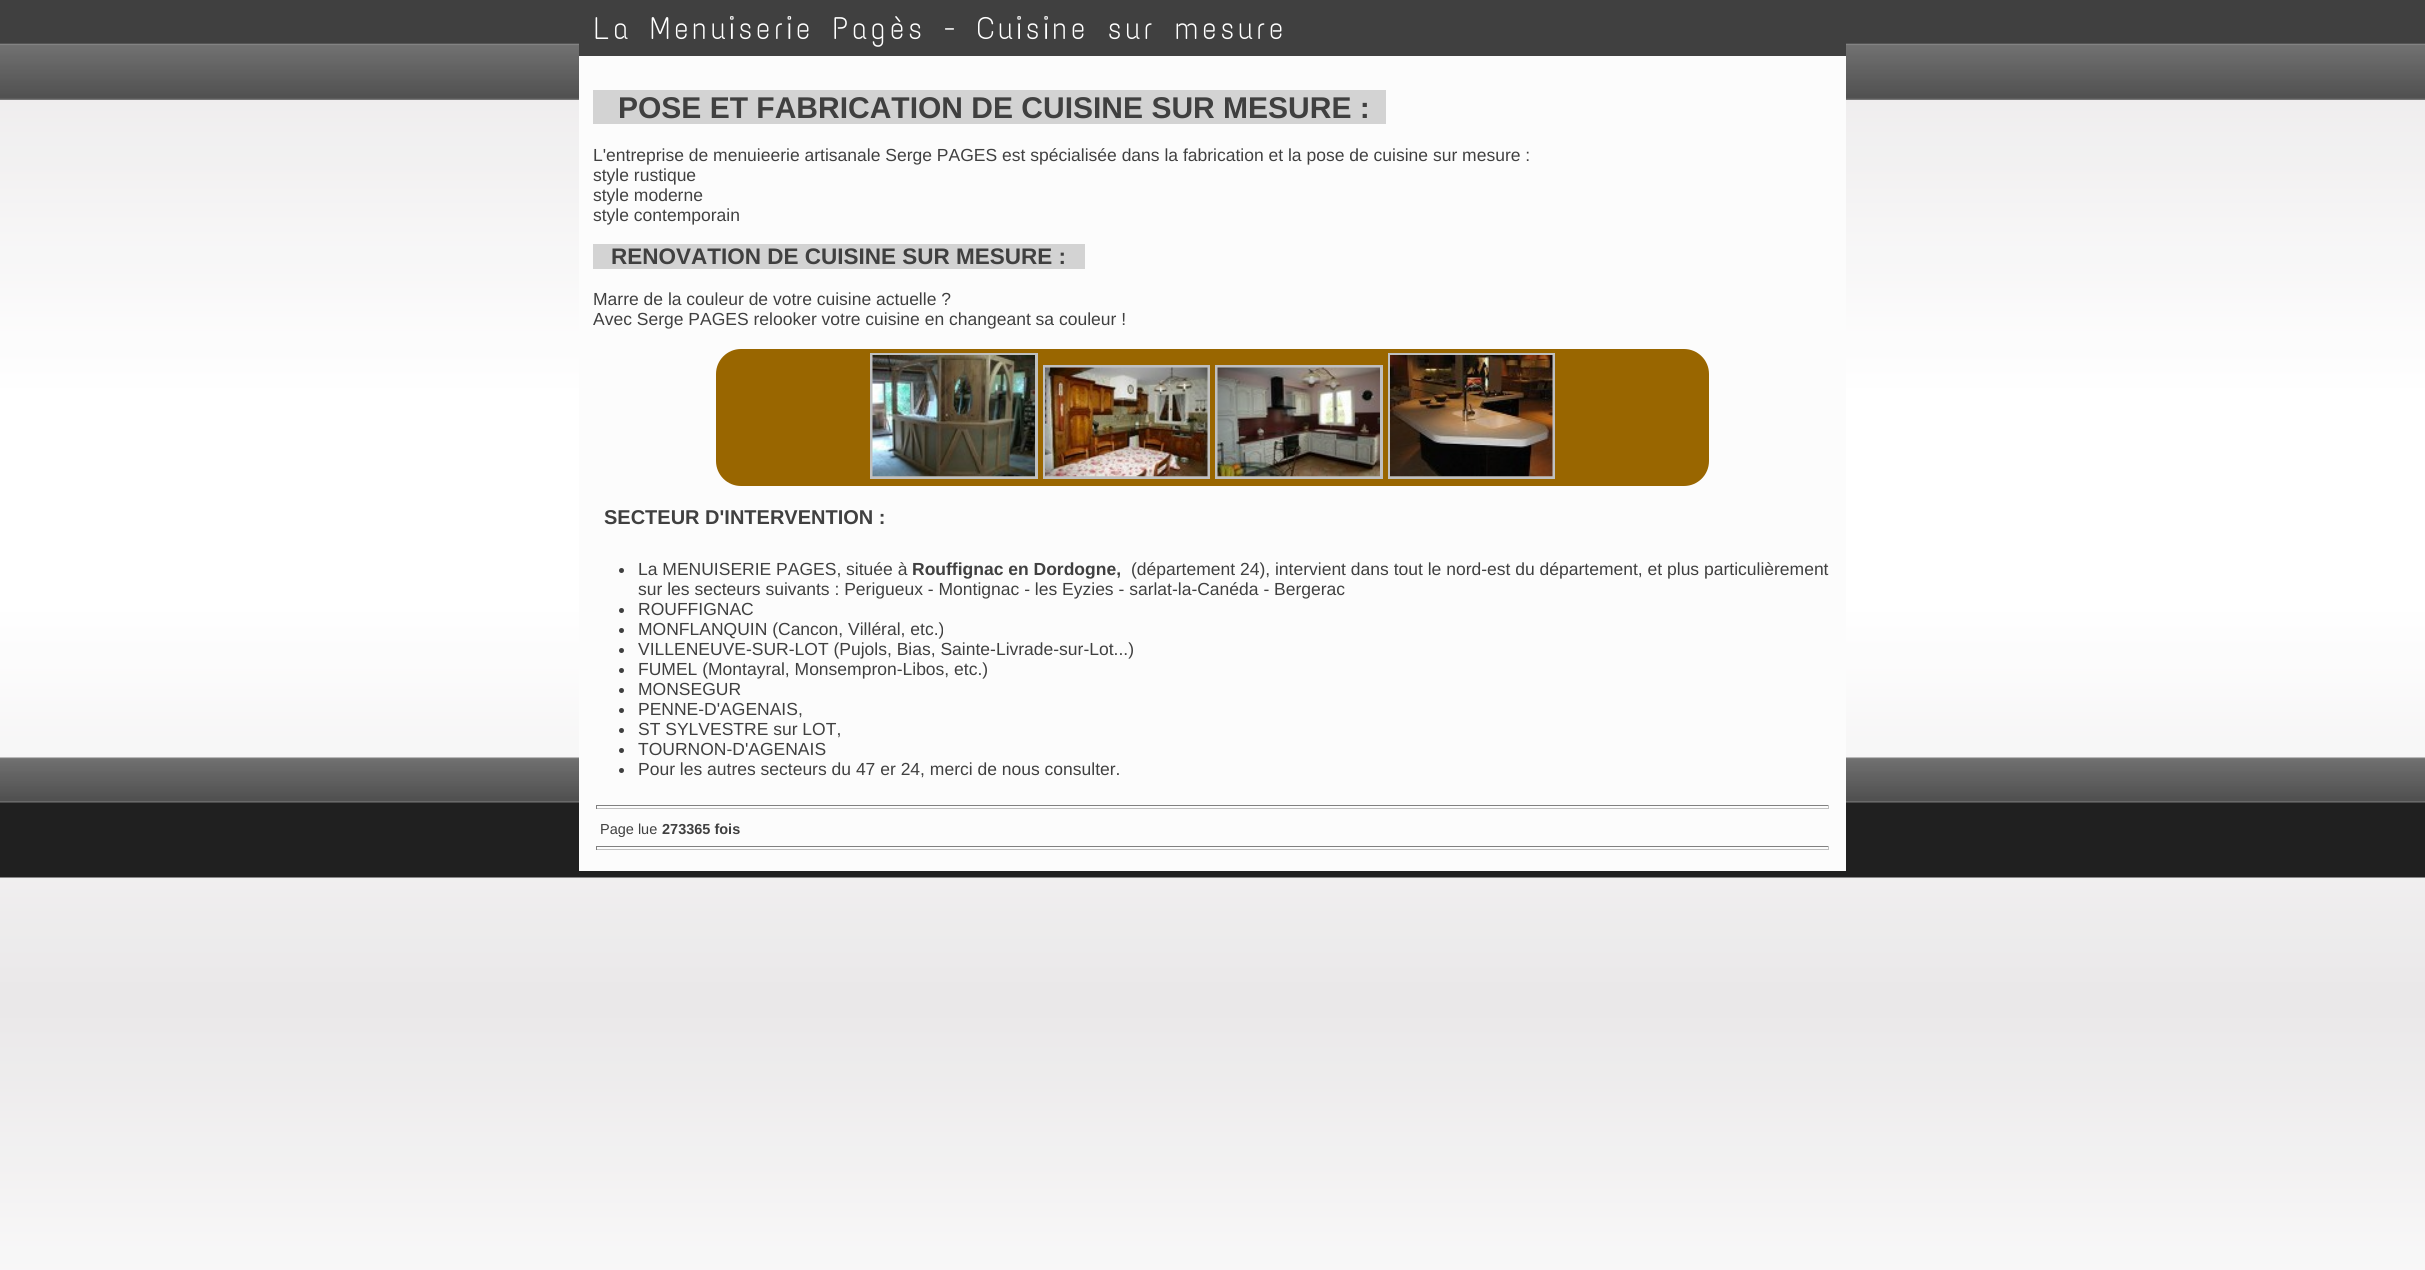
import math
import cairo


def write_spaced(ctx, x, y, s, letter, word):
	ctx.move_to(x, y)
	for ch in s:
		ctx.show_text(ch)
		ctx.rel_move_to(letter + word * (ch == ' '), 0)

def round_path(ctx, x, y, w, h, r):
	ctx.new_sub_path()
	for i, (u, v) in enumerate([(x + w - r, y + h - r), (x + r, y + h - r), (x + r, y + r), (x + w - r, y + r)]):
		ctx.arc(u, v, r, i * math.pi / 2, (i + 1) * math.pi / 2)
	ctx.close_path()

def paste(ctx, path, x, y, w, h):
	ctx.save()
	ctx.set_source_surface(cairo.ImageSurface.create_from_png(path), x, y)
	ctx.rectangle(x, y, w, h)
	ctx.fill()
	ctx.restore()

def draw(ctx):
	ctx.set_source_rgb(1, 1, 1)
	ctx.paint()
	paste(ctx, 'media/1.png', 0, 100, 2425, 1170)
	paste(ctx, 'media/2.png', 0, 0, 2425, 878)
	ctx.set_source_rgb(0.251, 0.251, 0.251)
	ctx.rectangle(579, 43, 1267, 13)
	ctx.fill()
	ctx.select_font_face('Text Me One')
	ctx.set_font_size(31.25)
	ctx.set_source_rgb(1, 1, 1)
	write_spaced(ctx, 594, 39, 'La Menuiserie Pagès - Cuisine sur mesure', 3.1, 0)
	ctx.set_source_rgb(0.988, 0.988, 0.988)
	ctx.rectangle(579, 56, 1267, 815)
	ctx.fill()
	ctx.set_source_rgb(0.827, 0.827, 0.827)
	ctx.rectangle(593, 90, 793, 34)
	ctx.fill()
	ctx.select_font_face('Liberation Sans', cairo.FONT_SLANT_NORMAL, cairo.FONT_WEIGHT_BOLD)
	ctx.set_font_size(30)
	ctx.set_source_rgb(0.251, 0.251, 0.251)
	ctx.move_to(618, 118)
	ctx.show_text('POSE ET FABRICATION DE CUISINE SUR MESURE :')
	ctx.select_font_face('Liberation Sans')
	ctx.set_font_size(17.5)
	for x, y, s in [
		(593, 161, 'L\'entreprise de menuieerie artisanale Serge PAGES est spécialisée dans la fabrication et la pose de cuisine sur mesure :'),
		(593, 181, 'style rustique'),
		(593, 201, 'style moderne'),
		(593, 221, 'style contemporain'),
	]:
		ctx.move_to(x, y)
		ctx.show_text(s)
	ctx.set_source_rgb(0.827, 0.827, 0.827)
	ctx.rectangle(593, 244, 492, 25)
	ctx.fill()
	ctx.select_font_face('Liberation Sans', cairo.FONT_SLANT_NORMAL, cairo.FONT_WEIGHT_BOLD)
	ctx.set_font_size(22.5)
	ctx.set_source_rgb(0.251, 0.251, 0.251)
	ctx.move_to(611, 264)
	ctx.show_text('RENOVATION DE CUISINE SUR MESURE :')
	ctx.select_font_face('Liberation Sans')
	ctx.set_font_size(17.5)
	ctx.move_to(593, 305)
	ctx.show_text('Marre de la couleur de votre cuisine actuelle ?')
	ctx.move_to(593, 325)
	ctx.show_text('Avec Serge PAGES relooker votre cuisine en changeant sa couleur !')
	ctx.set_source_rgb(0.6, 0.4, 0)
	round_path(ctx, 716, 349, 993, 137, 25)
	ctx.fill()
	ctx.rectangle(871.5, 354.5, 165, 123)
	ctx.set_source_rgb(0.753, 0.753, 0.753)
	ctx.set_line_width(3)
	ctx.stroke()
	ctx.rectangle(1389.5, 354.5, 164, 123)
	ctx.stroke()
	paste(ctx, 'media/3.png', 872, 355, 163, 122)
	ctx.rectangle(1044.5, 366.5, 164, 111)
	ctx.stroke()
	ctx.rectangle(1216.5, 366.5, 165, 111)
	ctx.stroke()
	paste(ctx, 'media/4.png', 1390, 355, 163, 122)
	paste(ctx, 'media/5.png', 1045, 367, 163, 110)
	paste(ctx, 'media/6.png', 1217, 367, 163, 110)
	ctx.select_font_face('Liberation Sans', cairo.FONT_SLANT_NORMAL, cairo.FONT_WEIGHT_BOLD)
	ctx.set_font_size(20)
	ctx.set_source_rgb(0.251, 0.251, 0.251)
	ctx.move_to(604, 524)
	ctx.show_text('SECTEUR D\'INTERVENTION :')
	ctx.new_path()
	ctx.arc(621.5, 570.5, 2.5, 0, 2 * math.pi)
	ctx.fill()
	ctx.select_font_face('Liberation Sans')
	ctx.set_font_size(17.5)
	ctx.move_to(638, 575)
	ctx.show_text('La MENUISERIE PAGES, située à')
	ctx.select_font_face('Liberation Sans', cairo.FONT_SLANT_NORMAL, cairo.FONT_WEIGHT_BOLD)
	ctx.move_to(912, 575)
	ctx.show_text('Rouffignac en Dordogne,')
	ctx.select_font_face('Liberation Sans')
	ctx.move_to(1131, 575)
	ctx.show_text('(département 24), intervient dans tout le nord-est du département, et plus particulièrement')
	ctx.move_to(638, 595)
	ctx.show_text('sur les secteurs suivants : Perigueux - Montignac - les Eyzies - sarlat-la-Canéda - Bergerac')
	ctx.new_path()
	ctx.arc(621.5, 610.5, 2.5, 0, 2 * math.pi)
	ctx.fill()
	ctx.move_to(638, 615)
	ctx.show_text('ROUFFIGNAC')
	ctx.new_path()
	ctx.arc(621.5, 630.5, 2.5, 0, 2 * math.pi)
	ctx.fill()
	ctx.move_to(638, 635)
	ctx.show_text('MONFLANQUIN (Cancon, Villéral, etc.)')
	ctx.new_path()
	ctx.arc(621.5, 650.5, 2.5, 0, 2 * math.pi)
	ctx.fill()
	ctx.move_to(638, 655)
	ctx.show_text('VILLENEUVE-SUR-LOT (Pujols, Bias, Sainte-Livrade-sur-Lot...)')
	ctx.new_path()
	ctx.arc(621.5, 670.5, 2.5, 0, 2 * math.pi)
	ctx.fill()
	ctx.move_to(638, 675)
	ctx.show_text('FUMEL (Montayral, Monsempron-Libos, etc.)')
	ctx.new_path()
	ctx.arc(621.5, 690.5, 2.5, 0, 2 * math.pi)
	ctx.fill()
	ctx.move_to(638, 695)
	ctx.show_text('MONSEGUR')
	ctx.new_path()
	ctx.arc(621.5, 710.5, 2.5, 0, 2 * math.pi)
	ctx.fill()
	ctx.move_to(638, 715)
	ctx.show_text('PENNE-D\'AGENAIS,')
	ctx.new_path()
	ctx.arc(621.5, 730.5, 2.5, 0, 2 * math.pi)
	ctx.fill()
	ctx.move_to(638, 735)
	ctx.show_text('ST SYLVESTRE sur LOT,')
	ctx.new_path()
	ctx.arc(621.5, 750.5, 2.5, 0, 2 * math.pi)
	ctx.fill()
	ctx.move_to(638, 755)
	ctx.show_text('TOURNON-D\'AGENAIS')
	ctx.new_path()
	ctx.arc(621.5, 770.5, 2.5, 0, 2 * math.pi)
	ctx.fill()
	ctx.move_to(638, 775)
	ctx.show_text('Pour les autres secteurs du 47 er 24, merci de nous consulter.')
	ctx.set_source_rgb(0.502, 0.502, 0.502)
	ctx.rectangle(596, 805, 1233, 1)
	ctx.fill()
	ctx.set_source_rgb(0.753, 0.753, 0.753)
	ctx.rectangle(1828, 805, 1, 4)
	ctx.rectangle(596, 808, 1233, 1)
	ctx.fill()
	ctx.set_source_rgb(0.502, 0.502, 0.502)
	ctx.rectangle(596, 805, 1, 4)
	ctx.fill()
	ctx.set_font_size(14.5)
	ctx.set_source_rgb(0.251, 0.251, 0.251)
	ctx.move_to(600, 834)
	ctx.show_text('Page lue')
	ctx.select_font_face('Liberation Sans', cairo.FONT_SLANT_NORMAL, cairo.FONT_WEIGHT_BOLD)
	ctx.move_to(662, 834)
	ctx.show_text('273365 fois')
	ctx.set_source_rgb(0.502, 0.502, 0.502)
	ctx.rectangle(596, 846, 1233, 1)
	ctx.fill()
	ctx.set_source_rgb(0.753, 0.753, 0.753)
	ctx.rectangle(1828, 846, 1, 4)
	ctx.rectangle(596, 849, 1233, 1)
	ctx.fill()
	ctx.set_source_rgb(0.502, 0.502, 0.502)
	ctx.rectangle(596, 846, 1, 4)
	ctx.fill()


surface = cairo.ImageSurface(cairo.FORMAT_RGB24, 2425, 1270)
ctx = cairo.Context(surface)
options = cairo.FontOptions()
options.set_hint_metrics(cairo.HINT_METRICS_OFF)
options.set_hint_style(cairo.HINT_STYLE_NONE)
ctx.set_font_options(options)
ctx.set_miter_limit(4)
draw(ctx)
surface.write_to_png('image.png')
